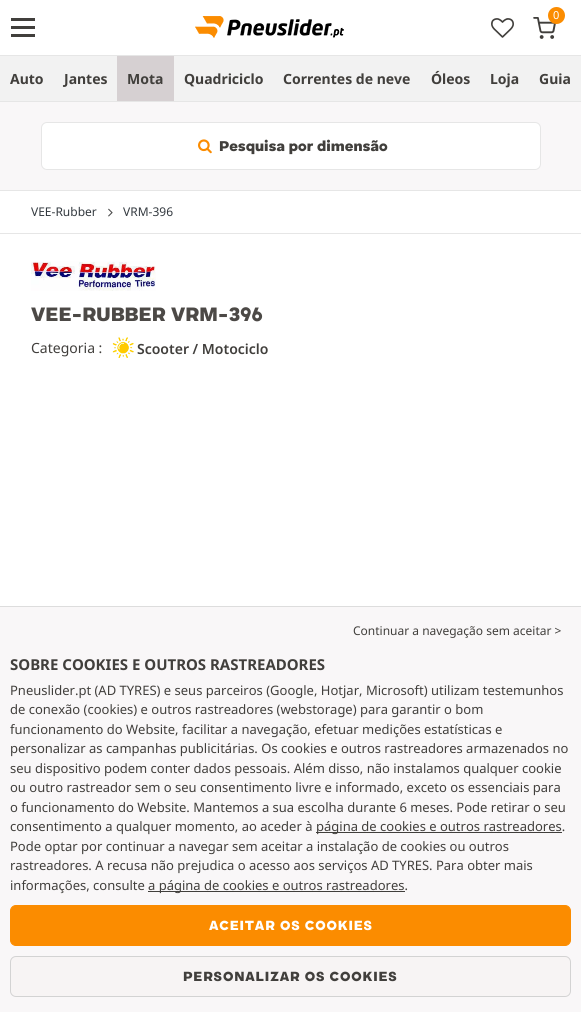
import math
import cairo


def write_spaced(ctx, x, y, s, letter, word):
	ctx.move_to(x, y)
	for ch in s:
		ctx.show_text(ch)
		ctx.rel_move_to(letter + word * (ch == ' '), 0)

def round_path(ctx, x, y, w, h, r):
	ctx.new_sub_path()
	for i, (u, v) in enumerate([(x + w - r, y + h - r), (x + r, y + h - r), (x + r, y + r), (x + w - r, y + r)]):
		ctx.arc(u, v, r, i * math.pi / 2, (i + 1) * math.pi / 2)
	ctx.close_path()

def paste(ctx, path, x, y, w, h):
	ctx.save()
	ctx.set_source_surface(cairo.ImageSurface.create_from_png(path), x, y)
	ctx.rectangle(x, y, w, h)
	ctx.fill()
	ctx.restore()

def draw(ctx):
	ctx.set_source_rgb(1, 1, 1)
	ctx.paint()
	ctx.set_source_rgb(0.255, 0.247, 0.235)
	ctx.rectangle(11, 18, 24, 3)
	ctx.rectangle(11, 26, 24, 3)
	ctx.rectangle(11, 34, 24, 3)
	ctx.fill()
	paste(ctx, 'media/1.png', 195, 16, 149, 22)
	paste(ctx, 'media/2.png', 491, 18, 23, 20)
	paste(ctx, 'media/3.png', 533, 17, 23, 22)
	ctx.set_source_rgb(0.984, 0.549, 0)
	ctx.arc(556.5, 15.5, 8.5, 0, 2 * math.pi)
	ctx.fill()
	ctx.select_font_face('Noto Sans')
	ctx.set_font_size(11)
	ctx.set_source_rgb(1, 1, 1)
	ctx.move_to(553, 19)
	ctx.show_text('0')
	ctx.set_source_rgb(0.949, 0.949, 0.949)
	ctx.rectangle(0, 56, 581, 45)
	ctx.fill()
	ctx.set_source_rgb(0.902, 0.902, 0.902)
	ctx.rectangle(0, 55, 581, 1)
	ctx.rectangle(0, 101, 581, 1)
	ctx.fill()
	ctx.select_font_face('Noto Sans', cairo.FONT_SLANT_NORMAL, cairo.FONT_WEIGHT_BOLD)
	ctx.set_font_size(14)
	ctx.set_source_rgb(0.255, 0.247, 0.235)
	ctx.move_to(10, 84)
	ctx.show_text('Auto')
	ctx.move_to(64, 84)
	ctx.show_text('Jantes')
	ctx.set_source_rgb(0.839, 0.816, 0.824)
	ctx.rectangle(117, 56, 57, 45)
	ctx.fill()
	ctx.set_source_rgb(0.255, 0.247, 0.235)
	for x, y, s in [
		(127, 84, 'Mota'),
		(184, 84, 'Quadriciclo'),
		(283, 84, 'Correntes de neve'),
		(431, 84, 'Óleos'),
		(490, 84, 'Loja'),
		(539, 84, 'Guia'),
	]:
		ctx.move_to(x, y)
		ctx.show_text(s)
	ctx.set_source_rgb(0.973, 0.965, 0.969)
	ctx.rectangle(0, 102, 581, 88)
	ctx.fill()
	ctx.set_source_rgb(1, 1, 1)
	round_path(ctx, 41.5, 122.5, 499, 47, 5.5)
	ctx.fill_preserve()
	ctx.set_source_rgb(0.902, 0.902, 0.902)
	ctx.set_line_width(1)
	ctx.stroke()
	paste(ctx, 'media/4.png', 198, 139, 14, 15)
	ctx.select_font_face('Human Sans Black')
	ctx.set_font_size(14.9)
	ctx.set_source_rgb(0.255, 0.247, 0.235)
	ctx.move_to(219, 151)
	ctx.show_text('Pesquisa por dimensão')
	ctx.set_source_rgb(0.902, 0.902, 0.902)
	ctx.rectangle(0, 190, 581, 1)
	ctx.fill()
	ctx.rectangle(0, 233, 581, 1)
	ctx.fill()
	ctx.select_font_face('Noto Sans')
	ctx.set_font_size(12)
	ctx.set_source_rgb(0.204, 0.227, 0.251)
	ctx.move_to(31, 216)
	ctx.show_text('VEE-Rubber')
	paste(ctx, 'media/5.png', 108, 208, 5, 9)
	ctx.move_to(123, 216)
	ctx.show_text('VRM-396')
	paste(ctx, 'media/6.png', 31, 261, 125, 30)
	ctx.select_font_face('Human Sans Black')
	ctx.set_font_size(20.4)
	ctx.set_source_rgb(0.298, 0.286, 0.275)
	ctx.move_to(31, 321)
	ctx.show_text('VEE-RUBBER VRM-396')
	ctx.select_font_face('Noto Sans')
	ctx.set_font_size(14)
	ctx.set_source_rgb(0.255, 0.247, 0.235)
	ctx.move_to(31, 353)
	ctx.show_text('Categoria :')
	paste(ctx, 'media/7.png', 112, 337, 22, 21)
	ctx.select_font_face('Noto Sans SemiBold')
	ctx.move_to(137, 354)
	ctx.show_text('Scooter / Motociclo')
	ctx.set_source_rgb(0.973, 0.965, 0.969)
	ctx.rectangle(0, 607, 581, 405)
	ctx.fill()
	ctx.set_source_rgb(0.867, 0.867, 0.867)
	ctx.rectangle(0, 606, 581, 1)
	ctx.fill()
	ctx.select_font_face('Noto Sans')
	ctx.set_font_size(12)
	ctx.set_source_rgb(0.255, 0.247, 0.235)
	ctx.move_to(353, 635)
	ctx.show_text('Continuar a navegação sem aceitar >')
	ctx.select_font_face('Noto Sans', cairo.FONT_SLANT_NORMAL, cairo.FONT_WEIGHT_BOLD)
	ctx.set_font_size(15)
	ctx.move_to(10, 670)
	ctx.show_text('SOBRE COOKIES E OUTROS RASTREADORES')
	ctx.select_font_face('Noto Sans')
	ctx.set_font_size(13)
	for x, y, s in [
		(10, 695, 'Pneuslider.pt (AD TYRES) e seus parceiros (Google, Hotjar, Microsoft) utilizam testemunhos'),
		(10, 714, 'de conexão (cookies) e outros rastreadores (webstorage) para garantir o bom'),
		(10, 734, 'funcionamento do Website, facilitar a navegação, efetuar medições estatísticas e'),
		(10, 753, 'personalizar as campanhas publicitárias. Os cookies e outros rastreadores armazenados no'),
		(10, 773, 'seu dispositivo podem conter dados pessoais. Além disso, não instalamos qualquer cookie'),
		(10, 792, 'ou outro rastreador sem o seu consentimento livre e informado, exceto os essenciais para'),
		(10, 812, 'o funcionamento do Website. Mantemos a sua escolha durante 6 meses. Pode retirar o seu'),
		(10, 831, 'consentimento a qualquer momento, ao aceder à'),
	]:
		ctx.move_to(x, y)
		ctx.show_text(s)
	ctx.rectangle(316, 832, 246, 1)
	ctx.fill()
	for x, y, s in [
		(316, 831, 'página de cookies e outros rastreadores.'),
		(10, 851, 'Pode optar por continuar a navegar sem aceitar a instalação de cookies ou outros'),
		(10, 870, 'rastreadores. A recusa não prejudica o acesso aos serviços AD TYRES. Para obter mais'),
		(10, 890, 'informações, consulte'),
	]:
		ctx.move_to(x, y)
		ctx.show_text(s)
	ctx.rectangle(148, 891, 257, 1)
	ctx.fill()
	ctx.move_to(148, 890)
	ctx.show_text('a página de cookies e outros rastreadores.')
	ctx.set_source_rgb(0.984, 0.549, 0)
	round_path(ctx, 10.5, 905.5, 560, 40, 5.5)
	ctx.fill_preserve()
	ctx.stroke()
	ctx.select_font_face('Human Sans Black')
	ctx.set_font_size(14)
	ctx.set_source_rgb(1, 1, 1)
	write_spaced(ctx, 209, 930, 'ACEITAR OS COOKIES', 0.8, 0)
	ctx.set_source_rgb(0.965, 0.957, 0.957)
	round_path(ctx, 10.5, 956.5, 560, 40, 5.5)
	ctx.fill_preserve()
	ctx.set_source_rgb(0.827, 0.827, 0.827)
	ctx.stroke()
	ctx.set_source_rgb(0.255, 0.247, 0.235)
	write_spaced(ctx, 183, 981, 'PERSONALIZAR OS COOKIES', 0.8, 0)


surface = cairo.ImageSurface(cairo.FORMAT_RGB24, 581, 1012)
ctx = cairo.Context(surface)
options = cairo.FontOptions()
options.set_hint_metrics(cairo.HINT_METRICS_OFF)
options.set_hint_style(cairo.HINT_STYLE_NONE)
ctx.set_font_options(options)
ctx.set_miter_limit(4)
draw(ctx)
surface.write_to_png('image.png')
